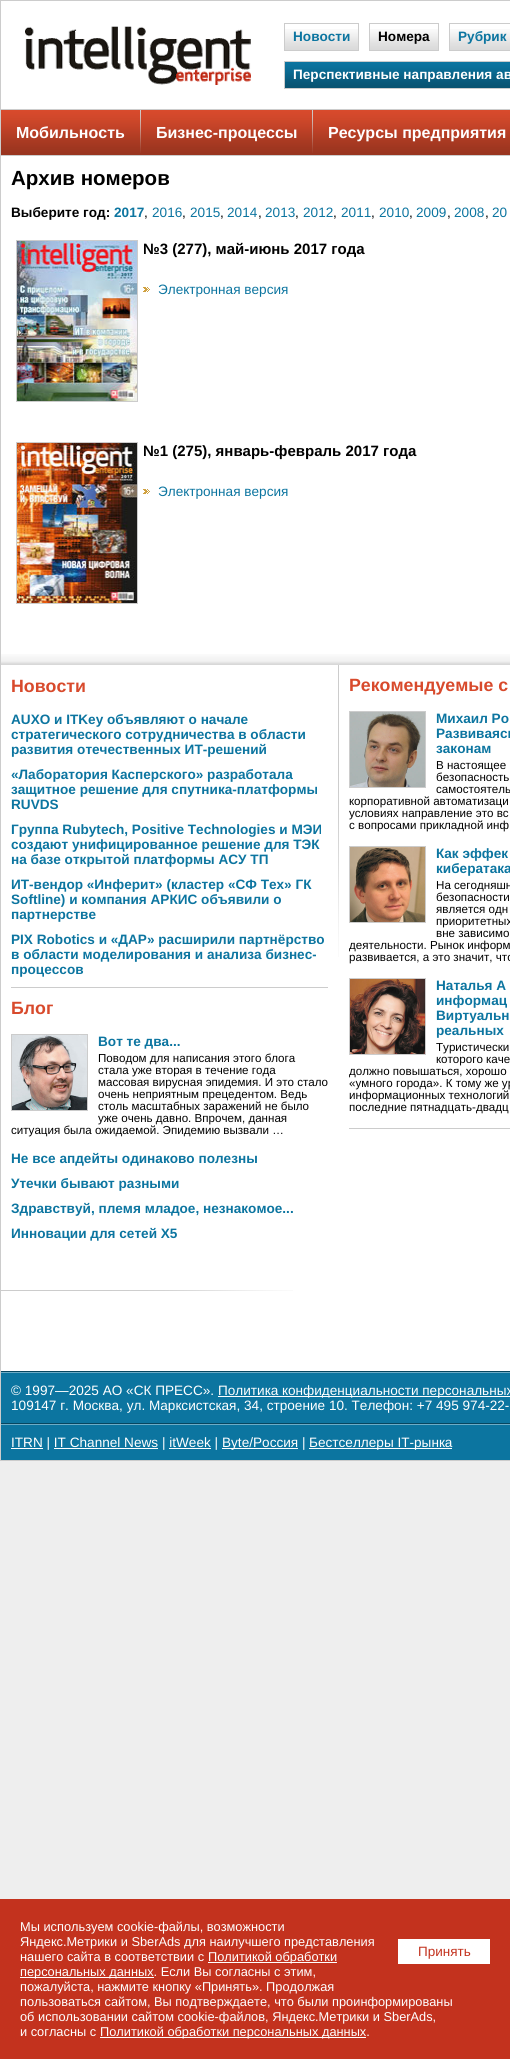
import math
import cairo


def paste(ctx, path, x, y, w, h):
	ctx.save()
	ctx.set_source_surface(cairo.ImageSurface.create_from_png(path), x, y)
	ctx.rectangle(x, y, w, h)
	ctx.fill()
	ctx.restore()

def draw(ctx):
	ctx.set_source_rgb(0.933, 0.933, 0.933)
	ctx.paint()
	ctx.set_source_rgb(1, 1, 1)
	ctx.rectangle(1, 1, 509, 1370)
	ctx.fill()
	ctx.rectangle(0.5, 0.5, 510, 1460)
	ctx.set_source_rgb(0.8, 0.8, 0.8)
	ctx.set_line_width(1)
	ctx.stroke()
	paste(ctx, 'media/1.png', 25, 26, 226, 59)
	paste(ctx, 'media/2.png', 285, 29, 73, 21)
	ctx.rectangle(284.5, 23.5, 74, 27)
	ctx.stroke()
	ctx.select_font_face('Liberation Sans', cairo.FONT_SLANT_NORMAL, cairo.FONT_WEIGHT_BOLD)
	ctx.set_font_size(13.6)
	ctx.set_source_rgb(0.047, 0.459, 0.627)
	ctx.move_to(293, 41)
	ctx.show_text('Новости')
	paste(ctx, 'media/3.png', 370, 29, 68, 21)
	ctx.rectangle(369.5, 23.5, 69, 27)
	ctx.set_source_rgb(0.8, 0.8, 0.8)
	ctx.stroke()
	ctx.set_source_rgb(0, 0, 0)
	ctx.move_to(378, 41)
	ctx.show_text('Номера')
	paste(ctx, 'media/4.png', 450, 29, 60, 21)
	ctx.rectangle(449.5, 23.5, 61, 27)
	ctx.set_source_rgb(0.8, 0.8, 0.8)
	ctx.stroke()
	ctx.set_source_rgb(0.047, 0.459, 0.627)
	ctx.move_to(458, 41)
	ctx.show_text('Рубрик')
	paste(ctx, 'media/5.png', 285, 62, 225, 26)
	ctx.rectangle(284.5, 61.5, 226, 27)
	ctx.set_source_rgb(0.8, 0.8, 0.8)
	ctx.stroke()
	ctx.set_source_rgb(1, 1, 1)
	ctx.move_to(293, 79)
	ctx.show_text('Перспективные направления ав')
	paste(ctx, 'media/6.png', 1, 109, 509, 47)
	ctx.set_font_size(16)
	ctx.move_to(16, 138)
	ctx.show_text('Мобильность')
	paste(ctx, 'media/7.png', 140, 110, 1, 43)
	ctx.move_to(156, 138)
	ctx.show_text('Бизнес-процессы')
	paste(ctx, 'media/7.png', 312, 110, 1, 43)
	ctx.move_to(328, 138)
	ctx.show_text('Ресурсы предприятия')
	ctx.set_font_size(20.5)
	ctx.set_source_rgb(0, 0, 0)
	ctx.move_to(11, 185)
	ctx.show_text('Архив номеров')
	ctx.set_font_size(13.6)
	ctx.move_to(11, 217)
	ctx.show_text('Выберите год:')
	ctx.set_source_rgb(0.047, 0.459, 0.627)
	ctx.move_to(114, 217)
	ctx.show_text('2017')
	ctx.select_font_face('Liberation Sans')
	ctx.set_source_rgb(0, 0, 0)
	ctx.move_to(144, 217)
	ctx.show_text(',')
	ctx.set_source_rgb(0.047, 0.459, 0.627)
	ctx.move_to(152, 217)
	ctx.show_text('2016')
	ctx.set_source_rgb(0, 0, 0)
	ctx.move_to(182, 217)
	ctx.show_text(',')
	ctx.set_source_rgb(0.047, 0.459, 0.627)
	ctx.move_to(190, 217)
	ctx.show_text('2015')
	ctx.set_source_rgb(0, 0, 0)
	ctx.move_to(220, 217)
	ctx.show_text(',')
	ctx.set_source_rgb(0.047, 0.459, 0.627)
	ctx.move_to(227, 217)
	ctx.show_text('2014')
	ctx.set_source_rgb(0, 0, 0)
	ctx.move_to(258, 217)
	ctx.show_text(',')
	ctx.set_source_rgb(0.047, 0.459, 0.627)
	ctx.move_to(265, 217)
	ctx.show_text('2013')
	ctx.set_source_rgb(0, 0, 0)
	ctx.move_to(295, 217)
	ctx.show_text(',')
	ctx.set_source_rgb(0.047, 0.459, 0.627)
	ctx.move_to(303, 217)
	ctx.show_text('2012')
	ctx.set_source_rgb(0, 0, 0)
	ctx.move_to(333, 217)
	ctx.show_text(',')
	ctx.set_source_rgb(0.047, 0.459, 0.627)
	ctx.move_to(341, 217)
	ctx.show_text('2011')
	ctx.set_source_rgb(0, 0, 0)
	ctx.move_to(371, 217)
	ctx.show_text(',')
	ctx.set_source_rgb(0.047, 0.459, 0.627)
	ctx.move_to(379, 217)
	ctx.show_text('2010')
	ctx.set_source_rgb(0, 0, 0)
	ctx.move_to(409, 217)
	ctx.show_text(',')
	ctx.set_source_rgb(0.047, 0.459, 0.627)
	ctx.move_to(416, 217)
	ctx.show_text('2009')
	ctx.set_source_rgb(0, 0, 0)
	ctx.move_to(447, 217)
	ctx.show_text(',')
	ctx.set_source_rgb(0.047, 0.459, 0.627)
	ctx.move_to(454, 217)
	ctx.show_text('2008')
	ctx.set_source_rgb(0, 0, 0)
	ctx.move_to(485, 217)
	ctx.show_text(',')
	ctx.set_source_rgb(0.047, 0.459, 0.627)
	ctx.move_to(492, 217)
	ctx.show_text('20')
	ctx.rectangle(16.5, 240.5, 121, 161)
	ctx.set_source_rgb(0.8, 0.8, 0.8)
	ctx.stroke()
	paste(ctx, 'media/8.png', 17, 241, 120, 160)
	ctx.select_font_face('Liberation Sans', cairo.FONT_SLANT_NORMAL, cairo.FONT_WEIGHT_BOLD)
	ctx.set_font_size(15)
	ctx.set_source_rgb(0, 0, 0)
	ctx.move_to(143, 254)
	ctx.show_text('№3 (277), май-июнь 2017 года')
	paste(ctx, 'media/9.png', 143, 287, 7, 5)
	ctx.select_font_face('Liberation Sans')
	ctx.set_font_size(13.6)
	ctx.set_source_rgb(0.047, 0.459, 0.627)
	ctx.move_to(158, 294)
	ctx.show_text('Электронная версия')
	ctx.rectangle(16.5, 442.5, 121, 161)
	ctx.set_source_rgb(0.8, 0.8, 0.8)
	ctx.stroke()
	paste(ctx, 'media/10.png', 17, 443, 120, 160)
	ctx.select_font_face('Liberation Sans', cairo.FONT_SLANT_NORMAL, cairo.FONT_WEIGHT_BOLD)
	ctx.set_font_size(15)
	ctx.set_source_rgb(0, 0, 0)
	ctx.move_to(143, 456)
	ctx.show_text('№1 (275), январь-февраль 2017 года')
	paste(ctx, 'media/9.png', 143, 489, 7, 5)
	ctx.select_font_face('Liberation Sans')
	ctx.set_font_size(13.6)
	ctx.set_source_rgb(0.047, 0.459, 0.627)
	ctx.move_to(158, 496)
	ctx.show_text('Электронная версия')
	paste(ctx, 'media/11.png', 1, 654, 509, 11)
	ctx.select_font_face('Liberation Sans', cairo.FONT_SLANT_NORMAL, cairo.FONT_WEIGHT_BOLD)
	ctx.set_font_size(17.75)
	ctx.set_source_rgb(0.847, 0.29, 0.173)
	ctx.move_to(11, 692)
	ctx.show_text('Новости')
	ctx.set_font_size(13.6)
	ctx.set_source_rgb(0.047, 0.459, 0.627)
	for x, y, s in [
		(11, 724, 'AUXO и ITKey объявляют о начале'),
		(11, 739, 'стратегического сотрудничества в области'),
		(11, 754, 'развития отечественных ИТ-решений'),
		(11, 779, '«Лаборатория Касперского» разработала'),
		(11, 794, 'защитное решение для спутника-платформы'),
		(11, 809, 'RUVDS'),
		(11, 834, 'Группа Rubytech, Positive Technologies и МЭИ'),
		(11, 849, 'создают унифицированное решение для ТЭК'),
		(11, 864, 'на базе открытой платформы АСУ ТП'),
		(11, 889, 'ИТ-вендор «Инферит» (кластер «СФ Тех» ГК'),
		(11, 904, 'Softline) и компания АРКИС объявили о'),
		(11, 919, 'партнерстве'),
		(11, 944, 'PIX Robotics и «ДАР» расширили партнёрство'),
		(11, 959, 'в области моделирования и анализа бизнес-'),
		(11, 974, 'процессов'),
	]:
		ctx.move_to(x, y)
		ctx.show_text(s)
	ctx.set_source_rgb(0.8, 0.8, 0.8)
	ctx.rectangle(11, 987, 317, 1)
	ctx.fill()
	ctx.set_font_size(17.75)
	ctx.set_source_rgb(0.847, 0.29, 0.173)
	ctx.move_to(11, 1014)
	ctx.show_text('Блог')
	ctx.rectangle(11.5, 1034.5, 76, 76)
	ctx.set_source_rgb(0.8, 0.8, 0.8)
	ctx.stroke()
	paste(ctx, 'media/12.png', 12, 1035, 75, 75)
	ctx.set_font_size(13.6)
	ctx.set_source_rgb(0.047, 0.459, 0.627)
	ctx.move_to(98, 1046)
	ctx.show_text('Вот те два...')
	ctx.select_font_face('Liberation Sans')
	ctx.set_font_size(11.6)
	ctx.set_source_rgb(0, 0, 0)
	for x, y, s in [
		(98, 1062, 'Поводом для написания этого блога'),
		(98, 1074, 'стала уже вторая в течение года'),
		(98, 1086, 'массовая вирусная эпидемия. И это стало'),
		(98, 1098, 'очень неприятным прецедентом. Ведь'),
		(98, 1110, 'столь масштабных заражений не было'),
		(98, 1122, 'уже очень давно. Впрочем, данная'),
		(11, 1134, 'ситуация была ожидаемой. Эпидемию вызвали …'),
	]:
		ctx.move_to(x, y)
		ctx.show_text(s)
	ctx.select_font_face('Liberation Sans', cairo.FONT_SLANT_NORMAL, cairo.FONT_WEIGHT_BOLD)
	ctx.set_font_size(13.6)
	ctx.set_source_rgb(0.047, 0.459, 0.627)
	for x, y, s in [
		(11, 1163, 'Не все апдейты одинаково полезны'),
		(11, 1188, 'Утечки бывают разными'),
		(11, 1213, 'Здравствуй, племя младое, незнакомое...'),
		(11, 1238, 'Инновации для сетей X5'),
	]:
		ctx.move_to(x, y)
		ctx.show_text(s)
	paste(ctx, 'media/13.png', 338, 665, 1, 292)
	ctx.set_font_size(17.75)
	ctx.set_source_rgb(0.847, 0.29, 0.173)
	ctx.move_to(349, 691)
	ctx.show_text('Рекомендуемые с')
	ctx.rectangle(349.5, 711.5, 76, 76)
	ctx.set_source_rgb(0.8, 0.8, 0.8)
	ctx.stroke()
	paste(ctx, 'media/14.png', 350, 712, 75, 75)
	ctx.set_font_size(13.6)
	ctx.set_source_rgb(0.047, 0.459, 0.627)
	for x, y, s in [
		(436, 723, 'Михаил Ро'),
		(436, 738, 'Развиваясь'),
		(436, 753, 'законам'),
	]:
		ctx.move_to(x, y)
		ctx.show_text(s)
	ctx.select_font_face('Liberation Sans')
	ctx.set_font_size(11.6)
	ctx.set_source_rgb(0, 0, 0)
	for x, y, s in [
		(436, 769, 'В настоящее'),
		(436, 781, 'безопасность'),
		(436, 793, 'самостоятель'),
		(349, 805, 'корпоративной автоматизаци'),
		(349, 817, 'условиях направление это вс'),
		(349, 829, 'с вопросами прикладной инф'),
	]:
		ctx.move_to(x, y)
		ctx.show_text(s)
	ctx.rectangle(349.5, 846.5, 76, 76)
	ctx.set_source_rgb(0.8, 0.8, 0.8)
	ctx.stroke()
	paste(ctx, 'media/15.png', 350, 847, 75, 75)
	ctx.select_font_face('Liberation Sans', cairo.FONT_SLANT_NORMAL, cairo.FONT_WEIGHT_BOLD)
	ctx.set_font_size(13.6)
	ctx.set_source_rgb(0.047, 0.459, 0.627)
	ctx.move_to(436, 858)
	ctx.show_text('Как эффек')
	ctx.move_to(436, 873)
	ctx.show_text('кибератака')
	ctx.select_font_face('Liberation Sans')
	ctx.set_font_size(11.6)
	ctx.set_source_rgb(0, 0, 0)
	for x, y, s in [
		(436, 889, 'На сегодняшн'),
		(436, 901, 'безопасности'),
		(436, 913, 'является одн'),
		(436, 925, 'приоритетных'),
		(436, 937, 'вне зависимо'),
		(349, 949, 'деятельности. Рынок информ'),
		(349, 961, 'развивается, а это значит, что'),
	]:
		ctx.move_to(x, y)
		ctx.show_text(s)
	ctx.rectangle(349.5, 978.5, 76, 76)
	ctx.set_source_rgb(0.8, 0.8, 0.8)
	ctx.stroke()
	paste(ctx, 'media/16.png', 350, 979, 75, 75)
	ctx.select_font_face('Liberation Sans', cairo.FONT_SLANT_NORMAL, cairo.FONT_WEIGHT_BOLD)
	ctx.set_font_size(13.6)
	ctx.set_source_rgb(0.047, 0.459, 0.627)
	for x, y, s in [
		(436, 990, 'Наталья А'),
		(436, 1005, 'информац'),
		(436, 1020, 'Виртуальн'),
		(436, 1035, 'реальных'),
	]:
		ctx.move_to(x, y)
		ctx.show_text(s)
	ctx.select_font_face('Liberation Sans')
	ctx.set_font_size(11.6)
	ctx.set_source_rgb(0, 0, 0)
	for x, y, s in [
		(436, 1051, 'Туристически'),
		(436, 1063, 'которого каче'),
		(349, 1075, 'должно повышаться, хорошо'),
		(349, 1087, '«умного города». К тому же ур'),
		(349, 1099, 'информационных технологий'),
		(349, 1111, 'последние пятнадцать-двадц'),
	]:
		ctx.move_to(x, y)
		ctx.show_text(s)
	ctx.set_source_rgb(0.8, 0.8, 0.8)
	ctx.rectangle(349, 1128, 161, 1)
	ctx.fill()
	paste(ctx, 'media/17.png', 1, 1290, 292, 1)
	ctx.set_source_rgb(0.047, 0.459, 0.627)
	ctx.rectangle(1, 1373, 509, 87)
	ctx.fill()
	ctx.set_source_rgb(0.027, 0.275, 0.376)
	ctx.rectangle(1, 1371, 509, 1)
	ctx.fill()
	ctx.set_source_rgb(0.427, 0.675, 0.776)
	ctx.rectangle(1, 1372, 509, 1)
	ctx.fill()
	ctx.set_font_size(13.6)
	ctx.set_source_rgb(1, 1, 1)
	ctx.move_to(11, 1395)
	ctx.show_text('© 1997—2025 АО «СК ПРЕСС».')
	ctx.rectangle(218, 1396, 292, 1)
	ctx.fill()
	ctx.move_to(218, 1395)
	ctx.show_text('Политика конфиденциальности персональных')
	ctx.move_to(11, 1410)
	ctx.show_text('109147 г. Москва, ул. Марксистская, 34, строение 10. Телефон: +7 495 974-22-')
	ctx.set_source_rgb(0.027, 0.275, 0.376)
	ctx.rectangle(1, 1423, 509, 1)
	ctx.fill()
	ctx.set_source_rgb(0.427, 0.675, 0.776)
	ctx.rectangle(1, 1424, 509, 1)
	ctx.fill()
	ctx.set_source_rgb(1, 1, 1)
	ctx.rectangle(11, 1448, 32, 1)
	ctx.fill()
	ctx.move_to(11, 1447)
	ctx.show_text('ITRN | IT Channel News | itWeek |')
	ctx.rectangle(222, 1448, 76, 1)
	ctx.fill()
	ctx.move_to(222, 1447)
	ctx.show_text('Byte/Россия |')
	ctx.rectangle(309, 1448, 143, 1)
	ctx.fill()
	ctx.move_to(309, 1447)
	ctx.show_text('Бестселлеры IT-рынка')
	ctx.rectangle(54, 1448, 104, 1)
	ctx.rectangle(169, 1448, 42, 1)
	ctx.fill()
	ctx.set_source_rgb(0.765, 0.196, 0.118)
	ctx.rectangle(0, 1899, 510, 160)
	ctx.fill()
	ctx.set_font_size(12.8)
	ctx.set_source_rgb(1, 1, 1)
	for x, y, s in [
		(20, 1931, 'Мы используем cookie-файлы, возможности'),
		(20, 1946, 'Яндекс.Метрики и SberAds для наилучшего представления'),
		(20, 1961, 'нашего сайта в соответствии с'),
	]:
		ctx.move_to(x, y)
		ctx.show_text(s)
	ctx.rectangle(208, 1962, 129, 1)
	ctx.fill()
	ctx.move_to(208, 1961)
	ctx.show_text('Политикой обработки')
	ctx.rectangle(398, 1939, 92, 25)
	ctx.fill()
	ctx.set_font_size(13.5)
	ctx.set_source_rgb(0.765, 0.196, 0.118)
	ctx.move_to(418, 1956)
	ctx.show_text('Принять')
	ctx.set_source_rgb(1, 1, 1)
	ctx.rectangle(20, 1977, 134, 1)
	ctx.fill()
	ctx.set_font_size(12.8)
	for x, y, s in [
		(20, 1976, 'персональных данных. Если Вы согласны с этим,'),
		(20, 1991, 'пожалуйста, нажмите кнопку «Принять». Продолжая'),
		(20, 2006, 'пользоваться сайтом, Вы подтверждаете, что были проинформированы'),
		(20, 2021, 'об использовании сайтом cookie-файлов, Яндекс.Метрики и SberAds,'),
		(20, 2036, 'и согласны с'),
	]:
		ctx.move_to(x, y)
		ctx.show_text(s)
	ctx.rectangle(100, 2037, 266, 1)
	ctx.fill()
	ctx.move_to(100, 2036)
	ctx.show_text('Политикой обработки персональных данных.')


surface = cairo.ImageSurface(cairo.FORMAT_RGB24, 510, 2059)
ctx = cairo.Context(surface)
options = cairo.FontOptions()
options.set_hint_metrics(cairo.HINT_METRICS_OFF)
options.set_hint_style(cairo.HINT_STYLE_NONE)
ctx.set_font_options(options)
ctx.set_miter_limit(4)
draw(ctx)
surface.write_to_png('image.png')
